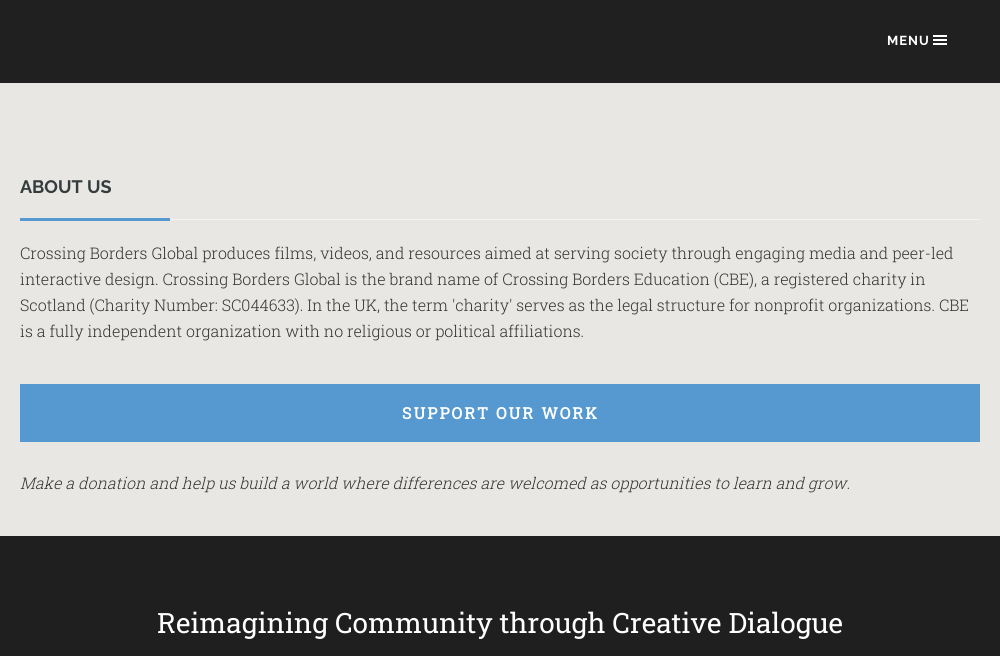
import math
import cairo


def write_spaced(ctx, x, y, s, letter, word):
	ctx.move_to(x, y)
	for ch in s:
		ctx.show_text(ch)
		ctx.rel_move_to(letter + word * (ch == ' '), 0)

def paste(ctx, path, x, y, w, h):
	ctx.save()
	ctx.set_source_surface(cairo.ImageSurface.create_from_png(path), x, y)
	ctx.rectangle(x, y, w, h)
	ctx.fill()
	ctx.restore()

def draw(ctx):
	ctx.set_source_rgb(0.91, 0.906, 0.89)
	ctx.paint()
	ctx.set_source_rgb(0.125, 0.125, 0.125)
	ctx.rectangle(0, 0, 1000, 83)
	ctx.fill()
	ctx.select_font_face('Raleway', cairo.FONT_SLANT_NORMAL, cairo.FONT_WEIGHT_BOLD)
	ctx.set_font_size(13)
	ctx.set_source_rgb(1, 1, 1)
	write_spaced(ctx, 887, 45, 'MENU', 1, 0)
	paste(ctx, 'media/1.png', 933, 35, 14, 10)
	ctx.set_source_rgb(0.953, 0.953, 0.953)
	ctx.rectangle(170, 219, 810, 1)
	ctx.fill()
	ctx.set_font_size(18)
	ctx.set_source_rgb(0.204, 0.235, 0.243)
	ctx.move_to(20, 193)
	ctx.show_text('ABOUT US')
	ctx.set_source_rgb(0.333, 0.6, 0.816)
	ctx.rectangle(20, 218, 150, 3)
	ctx.fill()
	ctx.select_font_face('Roboto Slab Light')
	ctx.set_font_size(16)
	ctx.set_source_rgb(0.2, 0.2, 0.2)
	for x, y, s in [
		(20, 259, 'Crossing Borders Global produces films, videos, and resources aimed at serving society through engaging media and peer-led'),
		(20, 285, 'interactive design. Crossing Borders Global is the brand name of Crossing Borders Education (CBE), a registered charity in'),
		(20, 311, 'Scotland (Charity Number: SC044633). In the UK, the term \'charity\' serves as the legal structure for nonprofit organizations. CBE'),
		(20, 337, 'is a fully independent organization with no religious or political affiliations.'),
	]:
		ctx.move_to(x, y)
		ctx.show_text(s)
	ctx.set_source_rgb(0.333, 0.6, 0.816)
	ctx.rectangle(20, 384, 960, 58)
	ctx.fill()
	ctx.select_font_face('Roboto Slab', cairo.FONT_SLANT_NORMAL, cairo.FONT_WEIGHT_BOLD)
	ctx.set_source_rgb(1, 1, 1)
	write_spaced(ctx, 402, 419, 'SUPPORT OUR WORK', 2, 0)
	ctx.select_font_face('Roboto Slab Light', cairo.FONT_SLANT_ITALIC)
	ctx.set_source_rgb(0.2, 0.2, 0.2)
	ctx.move_to(20, 489)
	ctx.show_text('Make a donation and help us build a world where differences are welcomed as opportunities to learn and grow.')
	ctx.set_source_rgb(0.122, 0.122, 0.122)
	ctx.rectangle(0, 536, 1000, 120)
	ctx.fill()
	ctx.select_font_face('Roboto Slab')
	ctx.set_font_size(28)
	ctx.set_source_rgb(1, 1, 1)
	ctx.move_to(157, 633)
	ctx.show_text('Reimagining Community through Creative Dialogue')


surface = cairo.ImageSurface(cairo.FORMAT_RGB24, 1000, 656)
ctx = cairo.Context(surface)
options = cairo.FontOptions()
options.set_hint_metrics(cairo.HINT_METRICS_OFF)
options.set_hint_style(cairo.HINT_STYLE_NONE)
ctx.set_font_options(options)
ctx.set_miter_limit(4)
draw(ctx)
surface.write_to_png('image.png')
